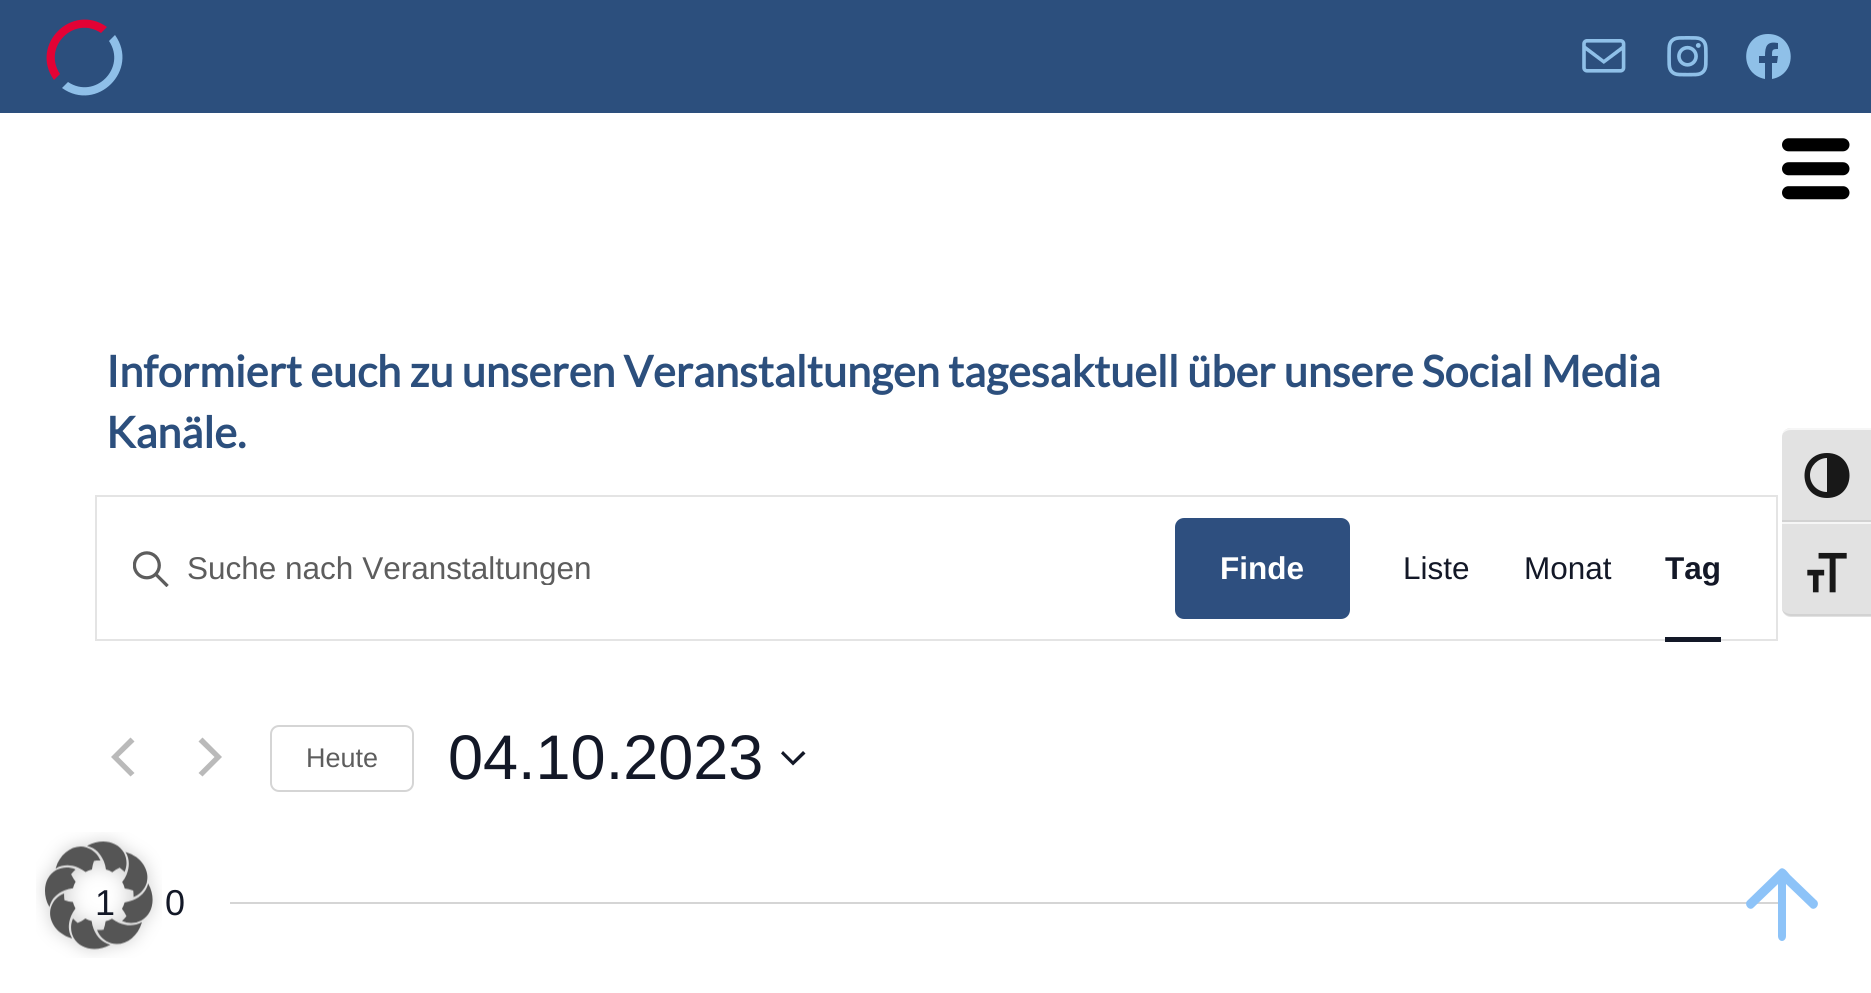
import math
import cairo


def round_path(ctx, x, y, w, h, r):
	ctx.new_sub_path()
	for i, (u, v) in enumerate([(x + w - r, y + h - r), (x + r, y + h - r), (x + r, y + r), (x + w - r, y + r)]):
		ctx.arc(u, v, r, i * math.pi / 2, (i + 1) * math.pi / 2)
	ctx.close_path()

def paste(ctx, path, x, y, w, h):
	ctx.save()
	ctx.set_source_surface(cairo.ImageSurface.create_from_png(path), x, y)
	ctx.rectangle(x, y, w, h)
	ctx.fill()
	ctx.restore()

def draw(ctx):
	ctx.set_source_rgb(1, 1, 1)
	ctx.paint()
	ctx.set_source_rgb(0.173, 0.31, 0.49)
	ctx.rectangle(0, 0, 1871, 113)
	ctx.fill()
	ctx.set_source_rgb(0.561, 0.749, 0.91)
	ctx.new_path()
	ctx.move_to(109, 41)
	ctx.curve_to(127, 68, 95, 100, 68, 82)
	ctx.line_to(62, 88)
	ctx.curve_to(97, 113, 140, 70, 115, 35)
	ctx.close_path()
	ctx.fill()
	ctx.set_source_rgb(0.89, 0.008, 0.208)
	ctx.new_path()
	ctx.move_to(60, 74)
	ctx.curve_to(42, 47, 74, 15, 101, 33)
	ctx.line_to(107, 27)
	ctx.curve_to(72, 2, 29, 45, 54, 80)
	ctx.close_path()
	ctx.fill()
	paste(ctx, 'media/1.png', 1582, 39, 44, 34)
	paste(ctx, 'media/2.png', 1667, 36, 41, 41)
	ctx.set_source_rgb(0.561, 0.753, 0.91)
	ctx.new_path()
	ctx.move_to(1768, 34)
	ctx.curve_to(1741, 34, 1738, 74, 1765, 79)
	ctx.line_to(1765, 63)
	ctx.line_to(1759, 63)
	ctx.line_to(1759, 56)
	ctx.line_to(1765, 56)
	ctx.curve_to(1765, 46, 1767, 41, 1778, 43)
	ctx.line_to(1778, 49)
	ctx.curve_to(1772, 49, 1772, 50, 1772, 56)
	ctx.line_to(1778, 56)
	ctx.line_to(1777, 63)
	ctx.line_to(1772, 63)
	ctx.line_to(1772, 79)
	ctx.curve_to(1799, 74, 1796, 34, 1768, 34)
	ctx.close_path()
	ctx.fill()
	paste(ctx, 'media/3.png', 1782, 138, 68, 62)
	ctx.select_font_face('Lato', cairo.FONT_SLANT_NORMAL, cairo.FONT_WEIGHT_BOLD)
	ctx.set_font_size(43.2)
	ctx.set_source_rgb(0.173, 0.31, 0.49)
	ctx.move_to(106, 387)
	ctx.show_text('Informiert euch zu unseren Veranstaltungen tagesaktuell über unsere Social Media')
	ctx.move_to(106, 448)
	ctx.show_text('Kanäle.')
	ctx.rectangle(96, 496, 1681, 144)
	ctx.set_source_rgb(0.894, 0.894, 0.894)
	ctx.stroke()
	paste(ctx, 'media/4.png', 133, 551, 36, 36)
	ctx.save()
	ctx.rectangle(187, 549, 943, 36)
	ctx.clip()
	ctx.select_font_face('Liberation Sans')
	ctx.set_font_size(31.5)
	ctx.set_source_rgb(0.365, 0.365, 0.365)
	ctx.move_to(187, 579)
	ctx.show_text('Suche nach Veranstaltungen')
	ctx.restore()
	ctx.set_source_rgb(0.18, 0.31, 0.498)
	round_path(ctx, 1175, 518, 175, 101, 9)
	ctx.fill()
	ctx.select_font_face('Liberation Sans', cairo.FONT_SLANT_NORMAL, cairo.FONT_WEIGHT_BOLD)
	ctx.set_font_size(31.5)
	ctx.set_source_rgb(1, 1, 1)
	ctx.move_to(1220, 579)
	ctx.show_text('Finde')
	ctx.select_font_face('Liberation Sans')
	ctx.set_source_rgb(0.078, 0.094, 0.153)
	ctx.move_to(1403, 579)
	ctx.show_text('Liste')
	ctx.move_to(1524, 579)
	ctx.show_text('Monat')
	ctx.select_font_face('Liberation Sans', cairo.FONT_SLANT_NORMAL, cairo.FONT_WEIGHT_BOLD)
	ctx.move_to(1665, 579)
	ctx.show_text('Tag')
	ctx.rectangle(1665, 637, 56, 5)
	ctx.fill()
	ctx.set_source_rgb(0.729, 0.729, 0.729)
	ctx.new_path()
	ctx.move_to(134.5, 773)
	ctx.line_to(130.5, 776.5)
	ctx.line_to(111, 757)
	ctx.line_to(130.5, 737.5)
	ctx.line_to(134.5, 741.5)
	ctx.line_to(118.5, 757)
	ctx.close_path()
	ctx.fill()
	ctx.new_path()
	ctx.move_to(198.5, 741.5)
	ctx.line_to(202.5, 737.5)
	ctx.line_to(222, 757)
	ctx.line_to(202.5, 776.5)
	ctx.line_to(198.5, 773)
	ctx.line_to(214.5, 757)
	ctx.close_path()
	ctx.fill()
	round_path(ctx, 271, 726, 142, 65, 8)
	ctx.set_source_rgb(0.835, 0.835, 0.835)
	ctx.stroke()
	ctx.select_font_face('Liberation Sans')
	ctx.set_font_size(27)
	ctx.set_source_rgb(0.365, 0.365, 0.365)
	ctx.move_to(306, 767)
	ctx.show_text('Heute')
	ctx.set_font_size(63)
	ctx.set_source_rgb(0.078, 0.094, 0.153)
	ctx.move_to(448, 779)
	ctx.show_text('04.10.2023')
	ctx.set_fill_rule(cairo.FILL_RULE_EVEN_ODD)
	ctx.new_path()
	ctx.move_to(783, 751)
	ctx.line_to(793, 761)
	ctx.line_to(803, 751)
	ctx.line_to(805.5, 753.5)
	ctx.line_to(793, 765.5)
	ctx.line_to(781, 753.5)
	ctx.close_path()
	ctx.fill()
	ctx.set_font_size(36)
	ctx.move_to(95, 915)
	ctx.show_text('1')
	ctx.move_to(165, 915)
	ctx.show_text('0')
	ctx.set_source_rgb(0.835, 0.835, 0.835)
	ctx.rectangle(230, 902, 1548, 2)
	ctx.fill()
	paste(ctx, 'media/5.png', 36, 832, 126, 126)
	ctx.set_source_rgb(0.553, 0.765, 0.969)
	ctx.set_fill_rule(cairo.FILL_RULE_WINDING)
	ctx.new_path()
	ctx.move_to(1817, 901)
	ctx.line_to(1790, 875)
	ctx.curve_to(1788, 873, 1784, 866, 1780, 869)
	ctx.line_to(1747, 901)
	ctx.curve_to(1744, 905, 1749, 911, 1753, 908)
	ctx.line_to(1778, 884)
	ctx.line_to(1778, 936)
	ctx.curve_to(1778, 939, 1780, 941, 1782, 941)
	ctx.curve_to(1784, 941, 1786, 939, 1786, 936)
	ctx.line_to(1786, 884)
	ctx.line_to(1811, 908)
	ctx.curve_to(1815, 911, 1820, 905, 1817, 901)
	ctx.close_path()
	ctx.fill()
	ctx.set_source_rgb(0.886, 0.886, 0.886)
	ctx.new_path()
	ctx.move_to(1791, 428)
	ctx.line_to(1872, 428)
	ctx.line_to(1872, 522)
	ctx.line_to(1782, 522)
	ctx.line_to(1782, 437)
	ctx.curve_to(1782, 432, 1786, 428, 1791, 428)
	ctx.close_path()
	ctx.fill()
	ctx.set_source_rgb(0.961, 0.961, 0.961)
	ctx.new_path()
	ctx.move_to(1791, 428)
	ctx.line_to(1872, 428)
	ctx.line_to(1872, 430)
	ctx.line_to(1791, 430)
	ctx.curve_to(1786, 430, 1782, 433, 1782, 436)
	ctx.curve_to(1782, 432, 1786, 428, 1791, 428)
	ctx.close_path()
	ctx.fill()
	ctx.set_source_rgb(0.824, 0.824, 0.824)
	ctx.rectangle(1782, 520, 89, 2)
	ctx.fill()
	ctx.set_source_rgb(0.094, 0.094, 0.094)
	ctx.new_path()
	ctx.move_to(1827, 453)
	ctx.curve_to(1797, 453, 1797, 498, 1827, 498)
	ctx.curve_to(1857, 498, 1857, 453, 1827, 453)
	ctx.close_path()
	ctx.move_to(1810, 475)
	ctx.curve_to(1810, 466, 1818, 458, 1827, 458)
	ctx.line_to(1827, 492)
	ctx.curve_to(1818, 492, 1810, 485, 1810, 475)
	ctx.close_path()
	ctx.fill()
	ctx.set_source_rgb(0.886, 0.886, 0.886)
	ctx.new_path()
	ctx.move_to(1782, 522)
	ctx.line_to(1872, 522)
	ctx.line_to(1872, 617)
	ctx.line_to(1791, 617)
	ctx.curve_to(1786, 617, 1782, 613, 1782, 608)
	ctx.close_path()
	ctx.fill()
	ctx.set_source_rgb(0.961, 0.961, 0.961)
	ctx.rectangle(1782, 522, 89, 2)
	ctx.fill()
	ctx.set_source_rgb(0.824, 0.824, 0.824)
	ctx.new_path()
	ctx.move_to(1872, 616)
	ctx.line_to(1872, 614)
	ctx.line_to(1791, 614)
	ctx.curve_to(1786, 614, 1782, 611, 1782, 608)
	ctx.curve_to(1782, 612, 1786, 616, 1791, 616)
	ctx.close_path()
	ctx.fill()
	paste(ctx, 'media/6.png', 1807, 552, 40, 41)


surface = cairo.ImageSurface(cairo.FORMAT_RGB24, 1871, 993)
ctx = cairo.Context(surface)
options = cairo.FontOptions()
options.set_hint_metrics(cairo.HINT_METRICS_OFF)
options.set_hint_style(cairo.HINT_STYLE_NONE)
ctx.set_font_options(options)
ctx.set_miter_limit(4)
draw(ctx)
surface.write_to_png('image.png')
